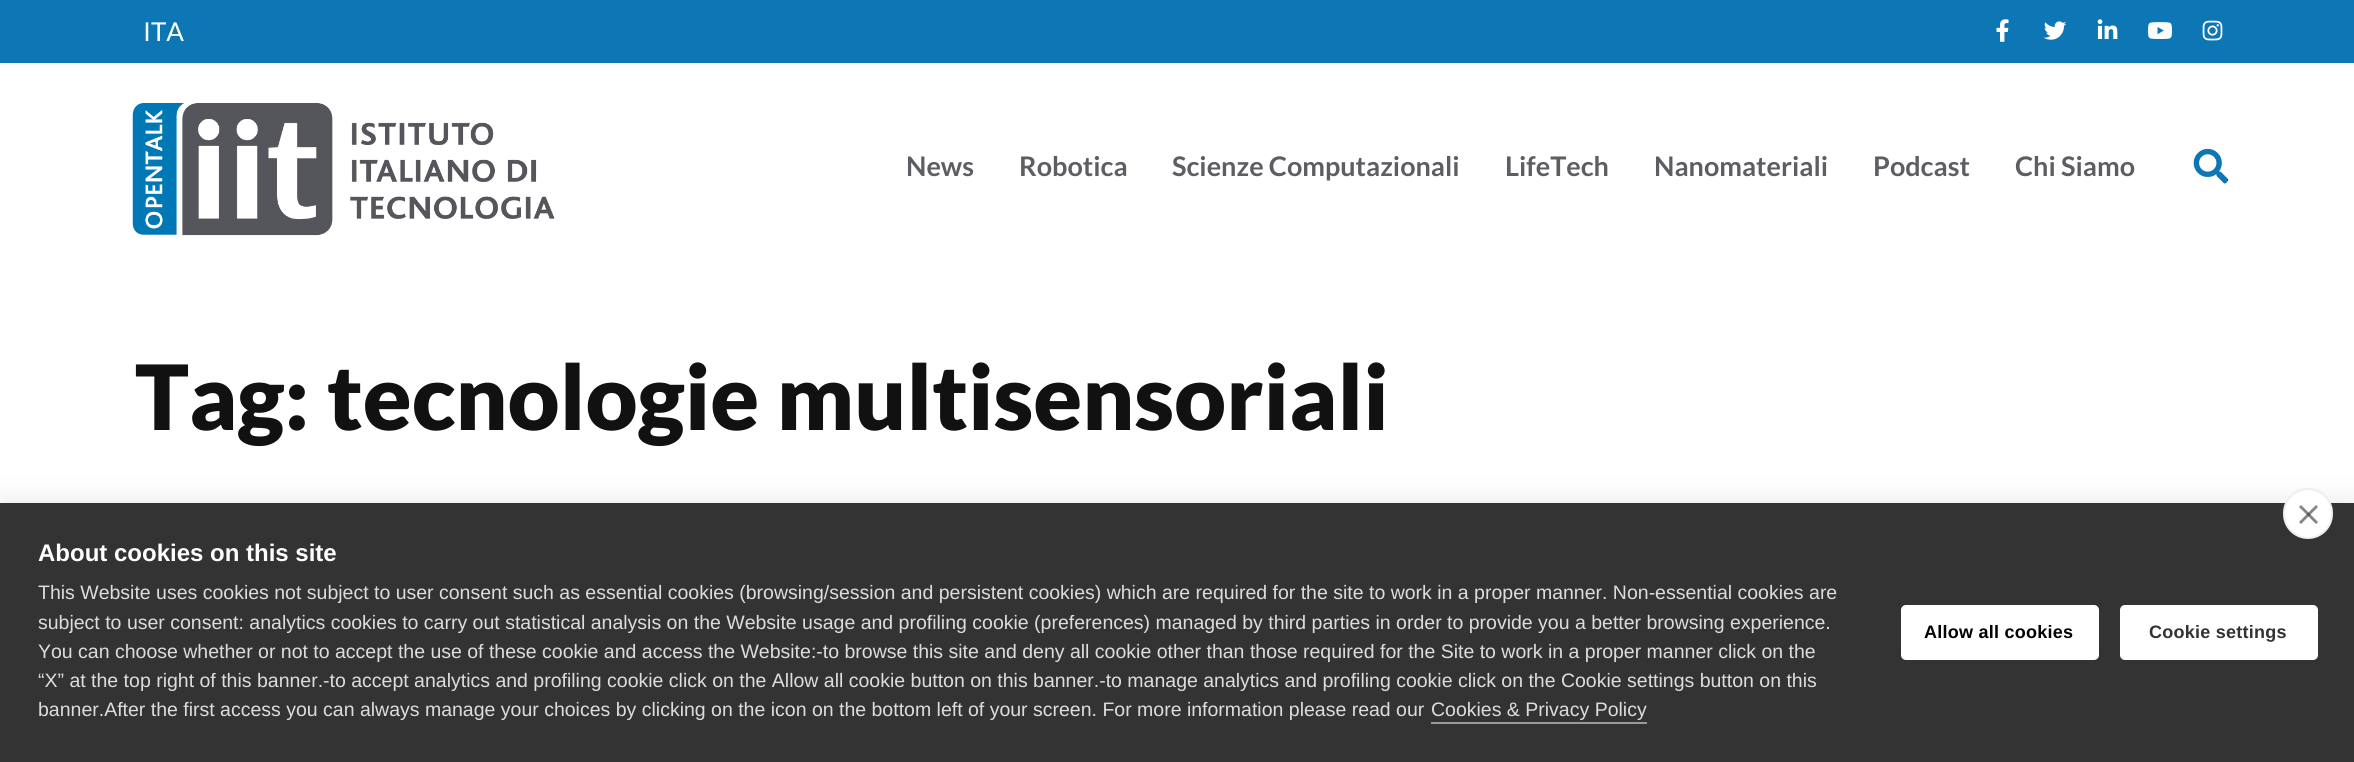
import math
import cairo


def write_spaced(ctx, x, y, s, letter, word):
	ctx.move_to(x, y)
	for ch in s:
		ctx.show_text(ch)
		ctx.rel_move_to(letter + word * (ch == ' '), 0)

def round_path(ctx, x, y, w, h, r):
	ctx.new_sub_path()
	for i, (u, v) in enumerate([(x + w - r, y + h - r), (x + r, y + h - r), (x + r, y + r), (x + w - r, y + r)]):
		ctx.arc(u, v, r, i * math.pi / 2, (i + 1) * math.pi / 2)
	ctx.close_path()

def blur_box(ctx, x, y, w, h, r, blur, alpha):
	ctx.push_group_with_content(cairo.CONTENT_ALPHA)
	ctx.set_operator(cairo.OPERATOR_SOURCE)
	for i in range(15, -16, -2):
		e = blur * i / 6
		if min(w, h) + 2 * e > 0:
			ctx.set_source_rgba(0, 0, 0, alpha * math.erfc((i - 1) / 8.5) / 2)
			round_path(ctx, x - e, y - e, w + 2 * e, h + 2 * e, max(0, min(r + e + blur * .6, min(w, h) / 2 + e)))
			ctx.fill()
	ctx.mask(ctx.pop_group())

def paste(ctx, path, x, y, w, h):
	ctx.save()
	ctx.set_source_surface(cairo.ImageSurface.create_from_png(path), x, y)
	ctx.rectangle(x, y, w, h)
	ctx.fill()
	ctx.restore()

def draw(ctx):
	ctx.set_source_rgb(1, 1, 1)
	ctx.paint()
	ctx.set_source_rgb(0.047, 0.467, 0.706)
	ctx.rectangle(0, 0, 2354, 63)
	ctx.fill()
	ctx.select_font_face('Lato')
	ctx.set_font_size(26)
	ctx.set_source_rgb(1, 1, 1)
	ctx.move_to(143, 41)
	ctx.show_text('ITA')
	paste(ctx, 'media/1.png', 1996, 19, 13, 23)
	paste(ctx, 'media/2.png', 2044, 21, 23, 19)
	paste(ctx, 'media/3.png', 2097, 19, 21, 20)
	paste(ctx, 'media/4.png', 2148, 22, 24, 17)
	paste(ctx, 'media/5.png', 2202, 20, 21, 21)
	paste(ctx, 'media/6.png', 132, 103, 423, 133)
	ctx.select_font_face('Lato', cairo.FONT_SLANT_NORMAL, cairo.FONT_WEIGHT_BOLD)
	ctx.set_font_size(27)
	ctx.set_source_rgb(0.365, 0.365, 0.388)
	for x, y, s in [
		(906, 176, 'News'),
		(1019, 176, 'Robotica'),
		(1172, 176, 'Scienze Computazionali'),
		(1505, 176, 'LifeTech'),
		(1654, 176, 'Nanomateriali'),
		(1873, 176, 'Podcast'),
		(2015, 176, 'Chi Siamo'),
	]:
		ctx.move_to(x, y)
		ctx.show_text(s)
	paste(ctx, 'media/7.png', 2193, 148, 36, 36)
	ctx.select_font_face('Lato Black')
	ctx.set_font_size(90)
	ctx.set_source_rgb(0.067, 0.067, 0.067)
	ctx.move_to(135, 430)
	ctx.show_text('Tag: tecnologie multisensoriali')
	ctx.set_source_rgb(0, 0, 0)
	blur_box(ctx, 0, 503, 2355, 259, 0, 15, 0.1)
	ctx.set_source_rgb(0.2, 0.2, 0.2)
	ctx.rectangle(0, 503, 2354, 259)
	ctx.fill()
	ctx.set_source_rgb(1, 1, 1)
	round_path(ctx, 2284, 489, 48, 49, 24)
	ctx.fill_preserve()
	ctx.set_source_rgb(0.933, 0.933, 0.933)
	ctx.stroke()
	ctx.set_source_rgb(0.522, 0.522, 0.522)
	ctx.new_path()
	ctx.move_to(2299, 522)
	ctx.line_to(2316, 505)
	ctx.line_to(2318, 507)
	ctx.line_to(2301, 524)
	ctx.close_path()
	ctx.fill()
	ctx.set_source_rgba(0.2, 0.2, 0.2, 0.6)
	ctx.new_path()
	ctx.move_to(2301, 505)
	ctx.line_to(2318, 522)
	ctx.line_to(2316, 524)
	ctx.line_to(2299, 507)
	ctx.close_path()
	ctx.fill()
	ctx.select_font_face('Liberation Sans', cairo.FONT_SLANT_NORMAL, cairo.FONT_WEIGHT_BOLD)
	ctx.set_font_size(24)
	ctx.set_source_rgb(1, 1, 1)
	ctx.move_to(38, 561)
	ctx.show_text('About cookies on this site')
	ctx.select_font_face('Liberation Sans')
	ctx.set_font_size(19.5)
	ctx.set_source_rgb(0.867, 0.867, 0.867)
	for x, y, s in [
		(38, 599, 'This Website uses cookies not subject to user consent such as essential cookies (browsing/session and persistent cookies) which are required for the site to work in a proper manner. Non-essential cookies are'),
		(38, 629, 'subject to user consent: analytics cookies to carry out statistical analysis on the Website usage and profiling cookie (preferences) managed by third parties in order to provide you a better browsing experience.'),
		(38, 658, 'You can choose whether or not to accept the use of these cookie and access the Website:-to browse this site and deny all cookie other than those required for the Site to work in a proper manner click on the'),
		(38, 687, '“X” at the top right of this banner.-to accept analytics and profiling cookie click on the Allow all cookie button on this banner.-to manage analytics and profiling cookie click on the Cookie settings button on this'),
		(38, 716, 'banner.After the first access you can always manage your choices by clicking on the icon on the bottom left of your screen. For more information please read our'),
		(1431, 716, 'Cookies & Privacy Policy'),
	]:
		ctx.move_to(x, y)
		ctx.show_text(s)
	ctx.set_source_rgb(0.6, 0.6, 0.6)
	ctx.rectangle(1431, 722, 216, 2)
	ctx.fill()
	ctx.set_source_rgb(1, 1, 1)
	round_path(ctx, 1901, 605, 198, 55, 5)
	ctx.fill()
	ctx.select_font_face('Liberation Sans', cairo.FONT_SLANT_NORMAL, cairo.FONT_WEIGHT_BOLD)
	ctx.set_font_size(18)
	ctx.set_source_rgb(0, 0, 0)
	write_spaced(ctx, 1924, 638, 'Allow all cookies', 0.25, 0)
	ctx.set_source_rgb(1, 1, 1)
	round_path(ctx, 2120, 605, 198, 55, 5)
	ctx.fill()
	ctx.set_source_rgb(0.2, 0.2, 0.2)
	write_spaced(ctx, 2149, 638, 'Cookie settings', 0.25, 0)


surface = cairo.ImageSurface(cairo.FORMAT_RGB24, 2354, 762)
ctx = cairo.Context(surface)
options = cairo.FontOptions()
options.set_hint_metrics(cairo.HINT_METRICS_OFF)
options.set_hint_style(cairo.HINT_STYLE_NONE)
ctx.set_font_options(options)
ctx.set_miter_limit(4)
draw(ctx)
surface.write_to_png('image.png')
